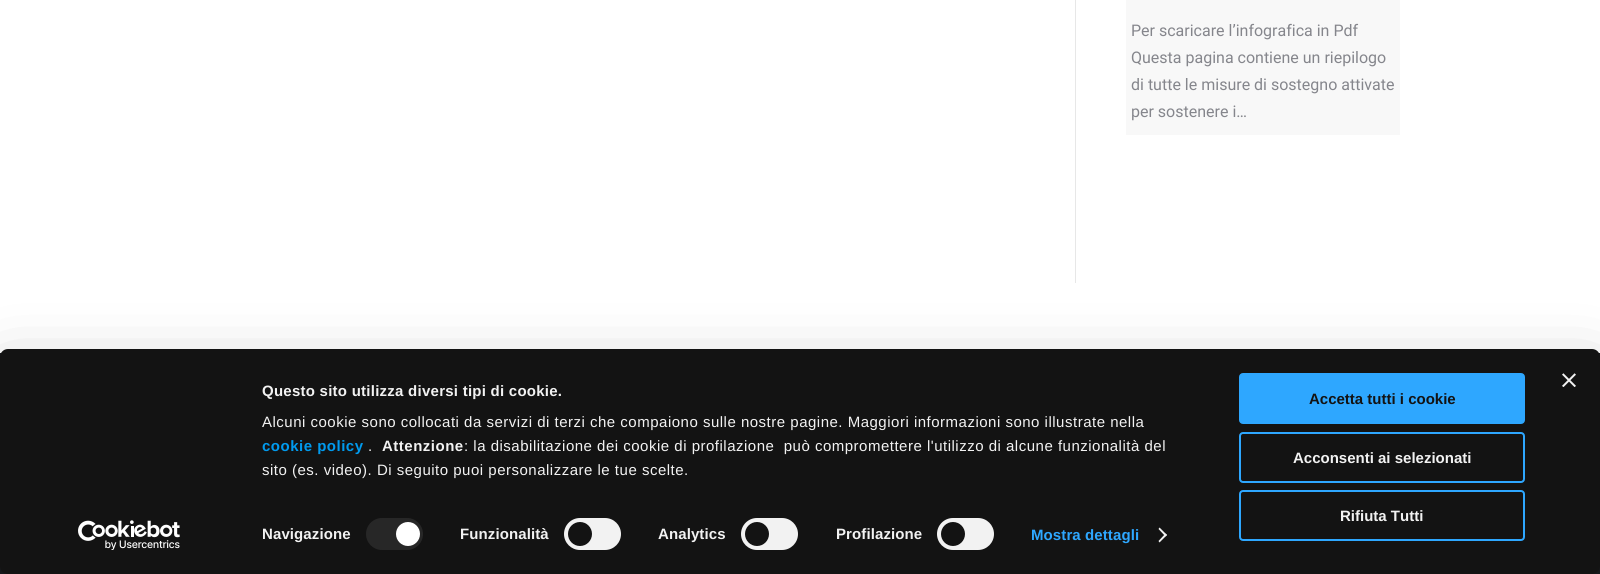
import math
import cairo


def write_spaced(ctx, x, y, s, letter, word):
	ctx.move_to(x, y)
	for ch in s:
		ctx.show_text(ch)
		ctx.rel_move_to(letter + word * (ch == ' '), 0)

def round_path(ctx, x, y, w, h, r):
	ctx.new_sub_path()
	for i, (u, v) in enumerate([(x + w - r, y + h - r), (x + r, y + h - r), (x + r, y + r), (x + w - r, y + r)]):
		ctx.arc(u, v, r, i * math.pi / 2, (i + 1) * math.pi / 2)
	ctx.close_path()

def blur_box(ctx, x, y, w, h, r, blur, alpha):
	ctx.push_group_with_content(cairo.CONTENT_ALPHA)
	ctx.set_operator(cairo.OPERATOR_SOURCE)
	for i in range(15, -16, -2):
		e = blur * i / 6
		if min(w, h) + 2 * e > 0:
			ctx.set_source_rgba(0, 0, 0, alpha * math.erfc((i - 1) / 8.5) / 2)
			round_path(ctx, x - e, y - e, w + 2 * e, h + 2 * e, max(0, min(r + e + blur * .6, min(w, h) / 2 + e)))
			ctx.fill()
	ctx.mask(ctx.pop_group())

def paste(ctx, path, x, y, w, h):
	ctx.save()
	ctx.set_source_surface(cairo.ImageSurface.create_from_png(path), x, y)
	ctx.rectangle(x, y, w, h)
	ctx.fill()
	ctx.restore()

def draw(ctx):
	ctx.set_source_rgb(1, 1, 1)
	ctx.paint()
	ctx.set_source_rgb(0.906, 0.906, 0.906)
	ctx.rectangle(1075, 0, 1, 283)
	ctx.fill()
	ctx.set_source_rgb(0.969, 0.969, 0.969)
	ctx.rectangle(1126, 0, 274, 135)
	ctx.fill()
	ctx.select_font_face('Roboto')
	ctx.set_font_size(16)
	ctx.set_source_rgb(0.522, 0.525, 0.549)
	for x, y, s in [
		(1131, 36, 'Per scaricare l’infografica in Pdf'),
		(1131, 63, 'Questa pagina contiene un riepilogo'),
		(1131, 90, 'di tutte le misure di sostegno attivate'),
		(1131, 117, 'per sostenere i…'),
	]:
		ctx.move_to(x, y)
		ctx.show_text(s)
	ctx.set_source_rgb(0.102, 0.11, 0.125)
	ctx.rectangle(0, 353, 1600, 221)
	ctx.fill()
	ctx.set_source_rgb(0, 0, 0)
	blur_box(ctx, 0, 379, 1600, 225, 8, 35, 0.3)
	ctx.set_source_rgb(0.078, 0.078, 0.078)
	round_path(ctx, 0, 349, 1600, 225, 8)
	ctx.fill()
	paste(ctx, 'media/1.png', 1562, 373, 14, 14)
	ctx.select_font_face('Liberation Sans', cairo.FONT_SLANT_NORMAL, cairo.FONT_WEIGHT_BOLD)
	ctx.set_font_size(15)
	ctx.set_source_rgb(0.949, 0.949, 0.949)
	write_spaced(ctx, 262, 396, 'Questo sito utilizza diversi tipi di cookie.', 0.25, 0)
	ctx.select_font_face('Liberation Sans')
	write_spaced(ctx, 262, 427, 'Alcuni cookie sono collocati da servizi di terzi che compaiono sulle nostre pagine. Maggiori informazioni sono illustrate nella', 0.5, 0)
	ctx.select_font_face('Liberation Sans', cairo.FONT_SLANT_NORMAL, cairo.FONT_WEIGHT_BOLD)
	ctx.set_source_rgb(0, 0.604, 0.933)
	write_spaced(ctx, 262, 451, 'cookie policy', 0.5, 0)
	ctx.select_font_face('Liberation Sans')
	ctx.set_source_rgb(0.949, 0.949, 0.949)
	write_spaced(ctx, 368, 451, '.', 0.5, 0)
	ctx.select_font_face('Liberation Sans', cairo.FONT_SLANT_NORMAL, cairo.FONT_WEIGHT_BOLD)
	write_spaced(ctx, 382, 451, 'Attenzione', 0.5, 0)
	ctx.select_font_face('Liberation Sans')
	write_spaced(ctx, 464, 451, ': la disabilitazione dei cookie di profilazione  può compromettere l\'utilizzo di alcune funzionalità del', 0.5, 0)
	write_spaced(ctx, 262, 475, 'sito (es. video). Di seguito puoi personalizzare le tue scelte.', 0.5, 0)
	ctx.select_font_face('Liberation Sans', cairo.FONT_SLANT_NORMAL, cairo.FONT_WEIGHT_BOLD)
	write_spaced(ctx, 262, 539, 'Navigazione', 0.1, 0)
	ctx.set_source_rgb(0.153, 0.153, 0.153)
	round_path(ctx, 366, 518, 57, 32, 16)
	ctx.fill()
	ctx.set_source_rgb(1, 1, 1)
	ctx.arc(408, 534, 12, 0, 2 * math.pi)
	ctx.fill()
	ctx.set_source_rgb(0.949, 0.949, 0.949)
	write_spaced(ctx, 460, 539, 'Funzionalità', 0.1, 0)
	round_path(ctx, 564, 518, 57, 32, 16)
	ctx.fill()
	ctx.set_source_rgb(0.078, 0.078, 0.078)
	ctx.arc(580, 534, 12, 0, 2 * math.pi)
	ctx.fill()
	ctx.set_source_rgb(0.949, 0.949, 0.949)
	write_spaced(ctx, 658, 539, 'Analytics', 0.1, 0)
	round_path(ctx, 741, 518, 57, 32, 16)
	ctx.fill()
	ctx.set_source_rgb(0.078, 0.078, 0.078)
	ctx.arc(757, 534, 12, 0, 2 * math.pi)
	ctx.fill()
	ctx.set_source_rgb(0.949, 0.949, 0.949)
	write_spaced(ctx, 836, 539, 'Profilazione', 0.1, 0)
	round_path(ctx, 937, 518, 57, 32, 16)
	ctx.fill()
	ctx.set_source_rgb(0.078, 0.078, 0.078)
	ctx.arc(953, 534, 12, 0, 2 * math.pi)
	ctx.fill()
	ctx.set_source_rgb(0.18, 0.655, 1)
	write_spaced(ctx, 1031, 540, 'Mostra dettagli', 0.1, 0)
	ctx.set_source_rgb(0.949, 0.949, 0.949)
	ctx.new_path()
	ctx.move_to(1159.5, 527.5)
	ctx.line_to(1167, 535)
	ctx.line_to(1165.5, 536.5)
	ctx.line_to(1158.5, 529)
	ctx.close_path()
	ctx.fill()
	ctx.new_path()
	ctx.move_to(1165.5, 533.5)
	ctx.line_to(1167, 535)
	ctx.line_to(1159.5, 542.5)
	ctx.line_to(1158.5, 541)
	ctx.close_path()
	ctx.fill()
	ctx.set_source_rgb(0.18, 0.655, 1)
	round_path(ctx, 1240, 374, 284, 49, 3)
	ctx.fill_preserve()
	ctx.stroke()
	ctx.set_source_rgb(0.078, 0.078, 0.078)
	ctx.move_to(1309, 404)
	ctx.show_text('Accetta tutti i cookie')
	round_path(ctx, 1240, 433, 284, 49, 3)
	ctx.set_source_rgb(0.18, 0.655, 1)
	ctx.stroke()
	ctx.set_source_rgb(0.949, 0.949, 0.949)
	ctx.move_to(1293, 463)
	ctx.show_text('Acconsenti ai selezionati')
	round_path(ctx, 1240, 491, 284, 49, 3)
	ctx.set_source_rgb(0.18, 0.655, 1)
	ctx.stroke()
	ctx.set_source_rgb(0.949, 0.949, 0.949)
	ctx.move_to(1340, 521)
	ctx.show_text('Rifiuta Tutti')
	paste(ctx, 'media/2.png', 78, 520, 102, 30)


surface = cairo.ImageSurface(cairo.FORMAT_RGB24, 1600, 574)
ctx = cairo.Context(surface)
options = cairo.FontOptions()
options.set_hint_metrics(cairo.HINT_METRICS_OFF)
options.set_hint_style(cairo.HINT_STYLE_NONE)
ctx.set_font_options(options)
ctx.set_miter_limit(4)
draw(ctx)
surface.write_to_png('image.png')
